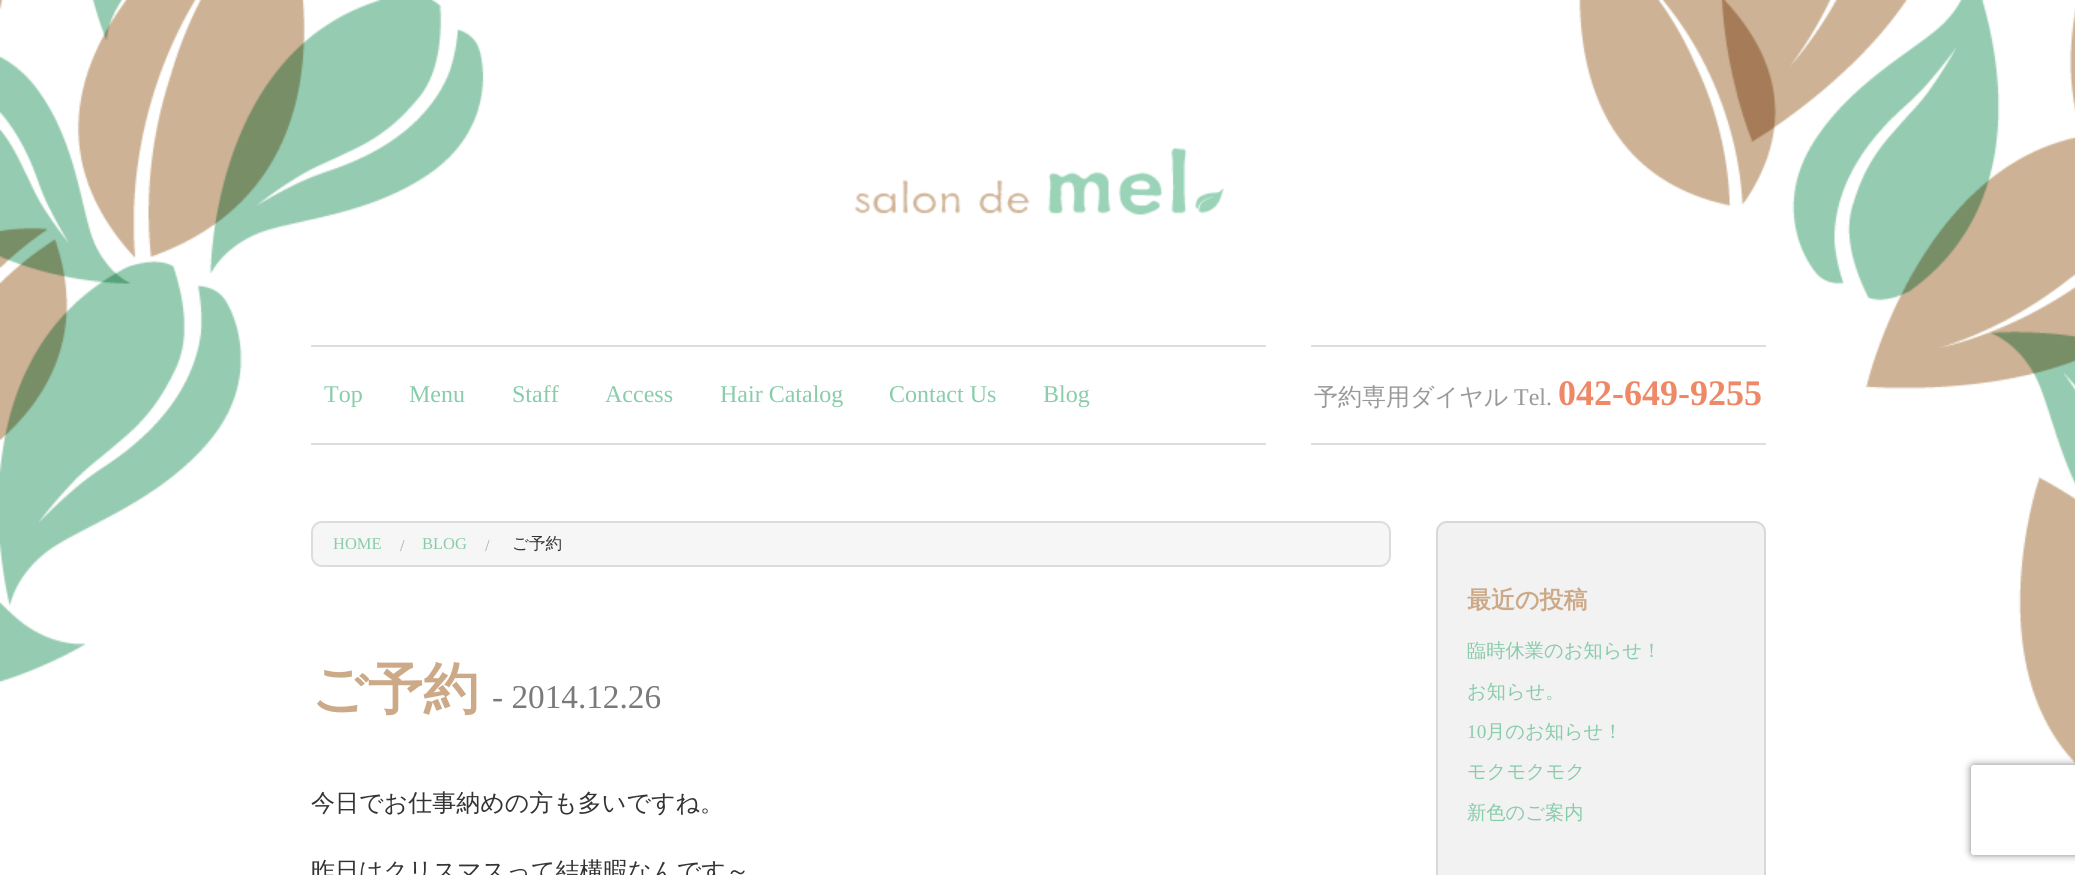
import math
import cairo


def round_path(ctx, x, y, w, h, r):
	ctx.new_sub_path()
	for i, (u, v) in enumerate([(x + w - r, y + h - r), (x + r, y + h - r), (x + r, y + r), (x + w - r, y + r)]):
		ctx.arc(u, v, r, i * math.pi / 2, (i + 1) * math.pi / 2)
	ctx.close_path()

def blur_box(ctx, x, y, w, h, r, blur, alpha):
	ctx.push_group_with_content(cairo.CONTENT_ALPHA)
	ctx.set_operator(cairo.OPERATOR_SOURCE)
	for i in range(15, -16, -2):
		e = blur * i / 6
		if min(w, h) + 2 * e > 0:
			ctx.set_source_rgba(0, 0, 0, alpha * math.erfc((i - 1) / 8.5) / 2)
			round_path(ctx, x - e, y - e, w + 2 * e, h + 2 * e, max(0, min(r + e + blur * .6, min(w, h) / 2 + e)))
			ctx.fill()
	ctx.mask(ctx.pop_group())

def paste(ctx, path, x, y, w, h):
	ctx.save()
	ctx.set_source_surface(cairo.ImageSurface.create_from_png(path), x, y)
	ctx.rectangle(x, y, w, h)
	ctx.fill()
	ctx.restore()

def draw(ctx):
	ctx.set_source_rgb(1, 1, 1)
	ctx.paint()
	paste(ctx, 'media/1.png', 0, 0, 2075, 764)
	paste(ctx, 'media/2.png', 854, 148, 370, 67)
	ctx.set_source_rgb(0.867, 0.867, 0.867)
	ctx.rectangle(311, 345, 955, 2)
	ctx.fill()
	ctx.select_font_face('Liberation Serif')
	ctx.set_font_size(24)
	ctx.set_source_rgb(0.533, 0.8, 0.667)
	for x, y, s in [
		(324, 402, 'Top'),
		(409, 402, 'Menu'),
		(512, 402, 'Staff'),
		(605, 402, 'Access'),
		(720, 402, 'Hair Catalog'),
		(889, 402, 'Contact Us'),
		(1043, 402, 'Blog'),
	]:
		ctx.move_to(x, y)
		ctx.show_text(s)
	ctx.set_source_rgb(0.867, 0.867, 0.867)
	ctx.rectangle(311, 443, 955, 2)
	ctx.fill()
	ctx.rectangle(1311, 345, 455, 2)
	ctx.fill()
	ctx.select_font_face('WenQuanYi Zen Hei Medium')
	ctx.set_source_rgb(0.6, 0.6, 0.6)
	ctx.move_to(1314, 405)
	ctx.show_text('予約専用ダイヤル')
	ctx.select_font_face('Liberation Serif')
	ctx.move_to(1514, 405)
	ctx.show_text('Tel.')
	ctx.select_font_face('Liberation Serif', cairo.FONT_SLANT_NORMAL, cairo.FONT_WEIGHT_BOLD)
	ctx.set_font_size(36)
	ctx.set_source_rgb(0.933, 0.533, 0.4)
	ctx.move_to(1558, 405)
	ctx.show_text('042-649-9255')
	ctx.set_source_rgb(0.867, 0.867, 0.867)
	ctx.rectangle(1311, 443, 455, 2)
	ctx.fill()
	ctx.set_source_rgb(0.961, 0.961, 0.961)
	round_path(ctx, 312, 522, 1078, 44, 10)
	ctx.fill_preserve()
	ctx.set_source_rgb(0.863, 0.863, 0.863)
	ctx.stroke()
	ctx.select_font_face('Liberation Serif')
	ctx.set_font_size(16.5)
	ctx.set_source_rgb(0.533, 0.8, 0.667)
	ctx.move_to(333, 549)
	ctx.show_text('HOME')
	ctx.set_source_rgb(0.667, 0.667, 0.667)
	ctx.move_to(400, 551)
	ctx.show_text('/')
	ctx.set_source_rgb(0.533, 0.8, 0.667)
	ctx.move_to(422, 549)
	ctx.show_text('BLOG')
	ctx.set_source_rgb(0.667, 0.667, 0.667)
	ctx.move_to(485, 551)
	ctx.show_text('/')
	ctx.select_font_face('WenQuanYi Zen Hei Medium')
	ctx.set_source_rgb(0.2, 0.2, 0.2)
	ctx.move_to(512, 549)
	ctx.show_text('ご予約')
	ctx.select_font_face('WenQuanYi Zen Hei', cairo.FONT_SLANT_NORMAL, cairo.FONT_WEIGHT_BOLD)
	ctx.set_font_size(55.5)
	ctx.set_source_rgb(0.8, 0.667, 0.533)
	ctx.move_to(311, 708)
	ctx.show_text('ご予約')
	ctx.select_font_face('Liberation Serif')
	ctx.set_font_size(33.25)
	ctx.set_source_rgb(0.478, 0.478, 0.478)
	ctx.move_to(492, 708)
	ctx.show_text('- 2014.12.26')
	ctx.select_font_face('WenQuanYi Zen Hei Medium')
	ctx.set_font_size(24)
	ctx.set_source_rgb(0.2, 0.2, 0.2)
	ctx.move_to(311, 811)
	ctx.show_text('今日でお仕事納めの方も多いですね。')
	ctx.move_to(311, 879)
	ctx.show_text('昨日はクリスマスって結構暇なんです～')
	ctx.set_source_rgb(0.949, 0.949, 0.949)
	round_path(ctx, 1437, 522, 328, 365, 10)
	ctx.fill_preserve()
	ctx.set_source_rgb(0.847, 0.847, 0.847)
	ctx.stroke()
	ctx.select_font_face('WenQuanYi Zen Hei', cairo.FONT_SLANT_NORMAL, cairo.FONT_WEIGHT_BOLD)
	ctx.set_source_rgb(0.8, 0.667, 0.533)
	ctx.move_to(1467, 608)
	ctx.show_text('最近の投稿')
	ctx.select_font_face('WenQuanYi Zen Hei Medium')
	ctx.set_font_size(19.25)
	ctx.set_source_rgb(0.533, 0.8, 0.667)
	ctx.move_to(1467, 657)
	ctx.show_text('臨時休業のお知らせ！')
	ctx.move_to(1467, 698)
	ctx.show_text('お知らせ。')
	ctx.select_font_face('Liberation Serif')
	ctx.move_to(1467, 738)
	ctx.show_text('10')
	ctx.select_font_face('WenQuanYi Zen Hei Medium')
	for x, y, s in [
		(1486, 738, '月のお知らせ！'),
		(1467, 778, 'モクモクモク'),
		(1467, 819, '新色のご案内'),
	]:
		ctx.move_to(x, y)
		ctx.show_text(s)
	ctx.save()
	ctx.set_fill_rule(cairo.FILL_RULE_EVEN_ODD)
	ctx.new_path()
	ctx.move_to(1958, 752)
	ctx.line_to(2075, 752)
	ctx.line_to(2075, 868)
	ctx.line_to(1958, 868)
	ctx.close_path()
	ctx.move_to(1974, 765)
	ctx.line_to(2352, 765)
	ctx.curve_to(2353.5, 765, 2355, 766.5, 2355, 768)
	ctx.line_to(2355, 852)
	ctx.curve_to(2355, 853.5, 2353.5, 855, 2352, 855)
	ctx.line_to(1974, 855)
	ctx.curve_to(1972.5, 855, 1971, 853.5, 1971, 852)
	ctx.line_to(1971, 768)
	ctx.curve_to(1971, 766.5, 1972.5, 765, 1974, 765)
	ctx.close_path()
	ctx.clip()
	ctx.set_source_rgb(0.502, 0.502, 0.502)
	blur_box(ctx, 1971, 765, 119, 90, 3, 4, 1)
	ctx.restore()


surface = cairo.ImageSurface(cairo.FORMAT_RGB24, 2075, 875)
ctx = cairo.Context(surface)
options = cairo.FontOptions()
options.set_hint_metrics(cairo.HINT_METRICS_OFF)
options.set_hint_style(cairo.HINT_STYLE_NONE)
ctx.set_font_options(options)
ctx.set_miter_limit(4)
draw(ctx)
surface.write_to_png('image.png')
